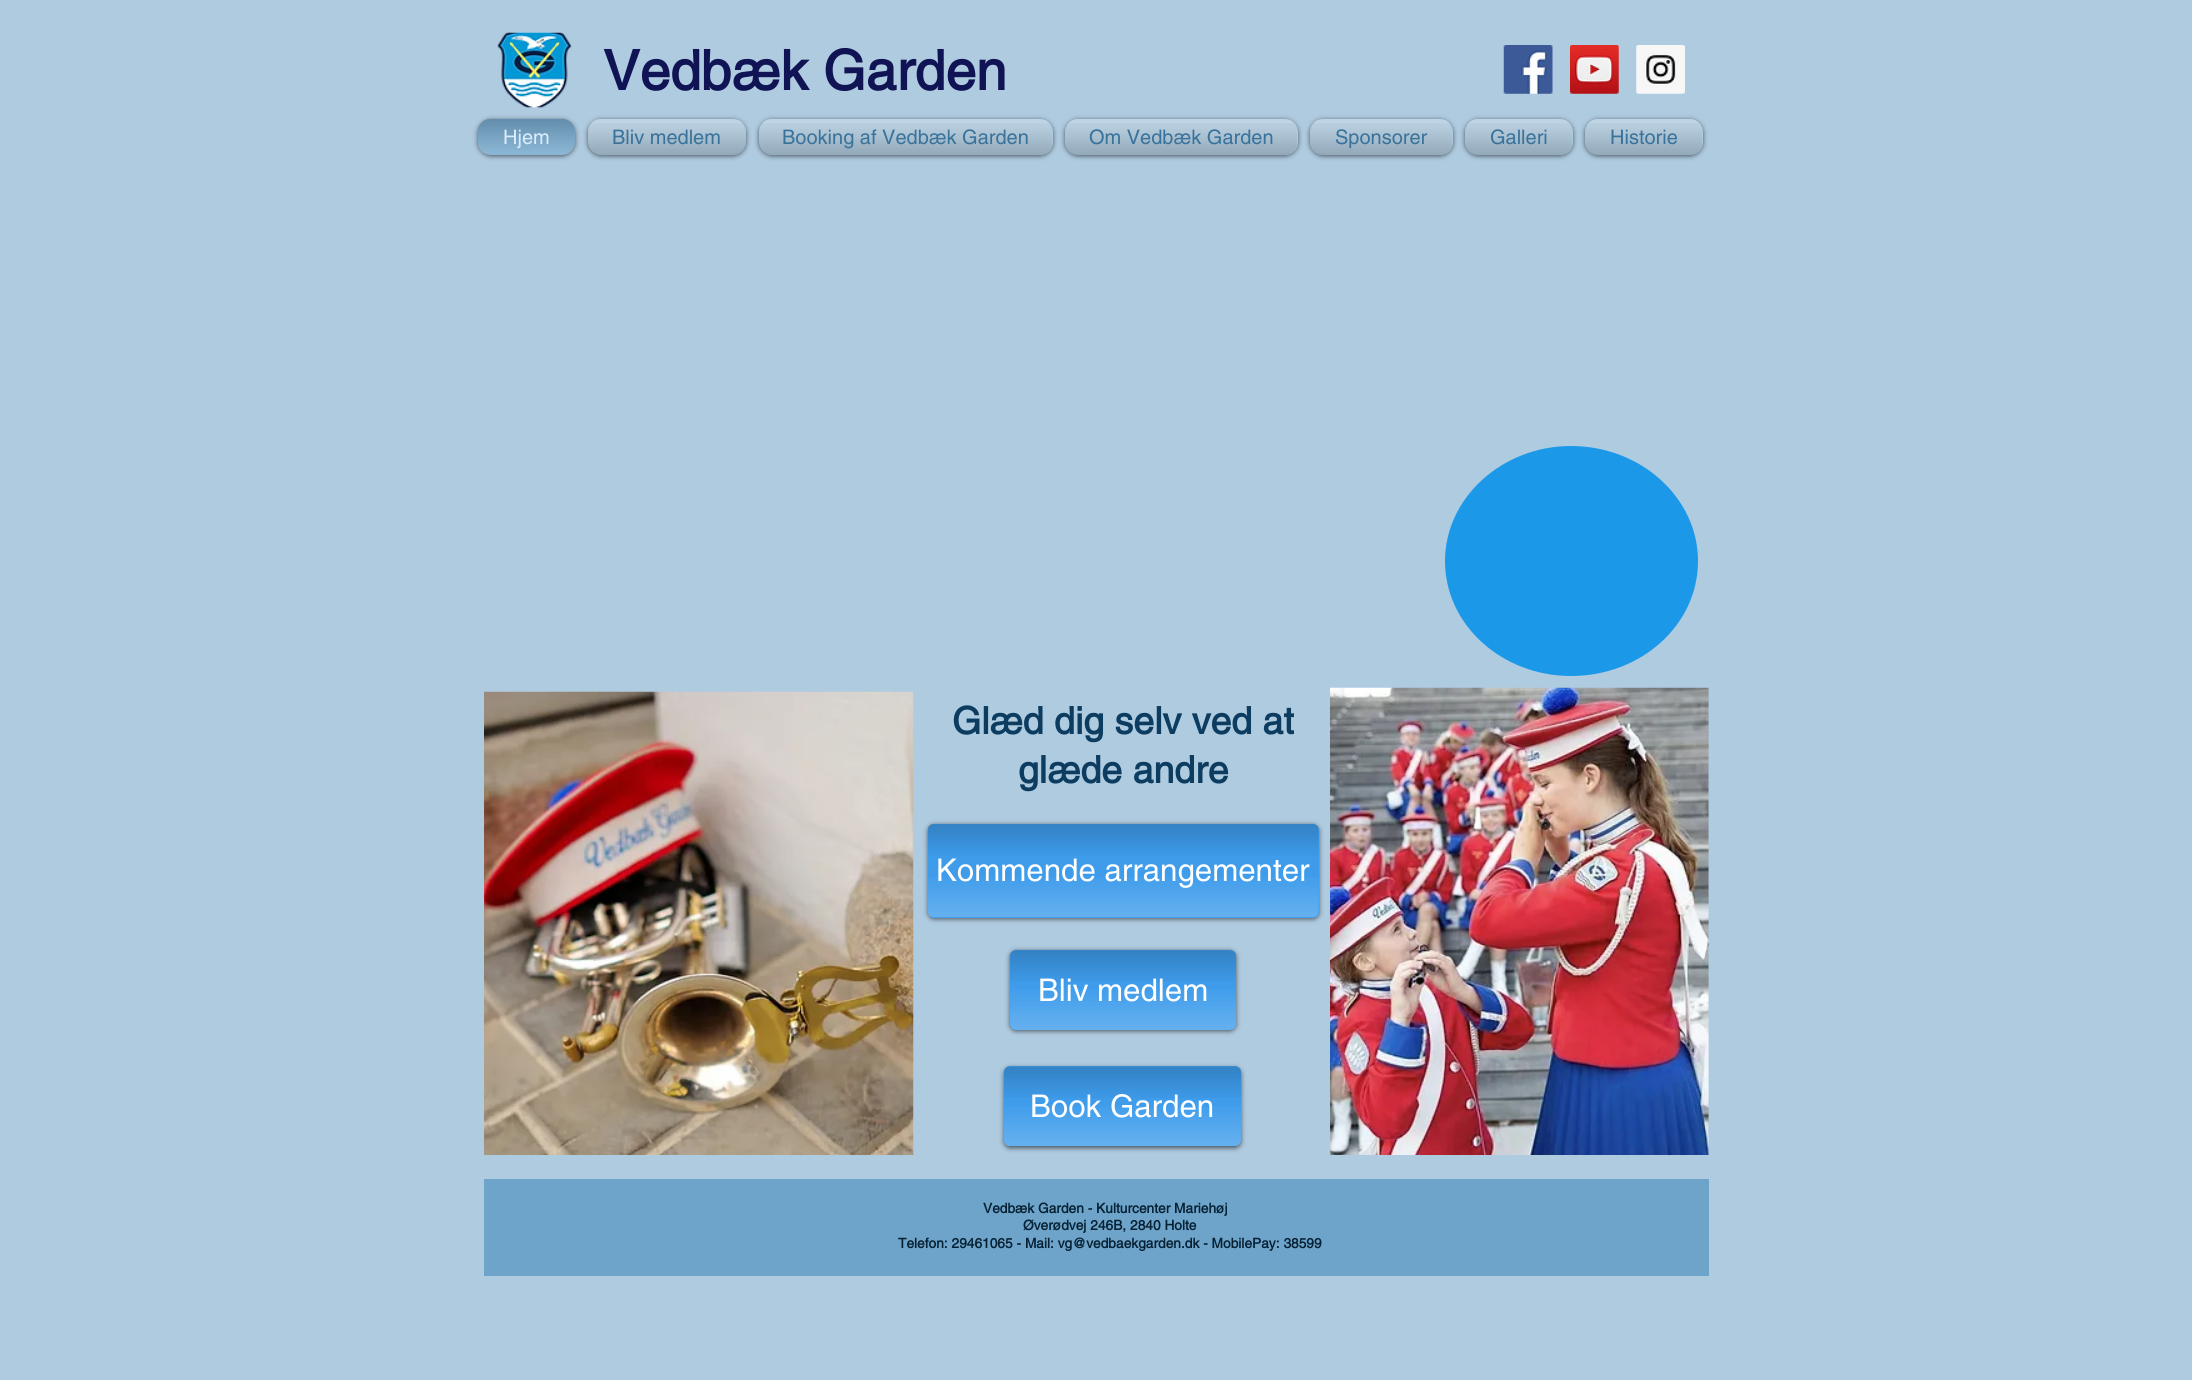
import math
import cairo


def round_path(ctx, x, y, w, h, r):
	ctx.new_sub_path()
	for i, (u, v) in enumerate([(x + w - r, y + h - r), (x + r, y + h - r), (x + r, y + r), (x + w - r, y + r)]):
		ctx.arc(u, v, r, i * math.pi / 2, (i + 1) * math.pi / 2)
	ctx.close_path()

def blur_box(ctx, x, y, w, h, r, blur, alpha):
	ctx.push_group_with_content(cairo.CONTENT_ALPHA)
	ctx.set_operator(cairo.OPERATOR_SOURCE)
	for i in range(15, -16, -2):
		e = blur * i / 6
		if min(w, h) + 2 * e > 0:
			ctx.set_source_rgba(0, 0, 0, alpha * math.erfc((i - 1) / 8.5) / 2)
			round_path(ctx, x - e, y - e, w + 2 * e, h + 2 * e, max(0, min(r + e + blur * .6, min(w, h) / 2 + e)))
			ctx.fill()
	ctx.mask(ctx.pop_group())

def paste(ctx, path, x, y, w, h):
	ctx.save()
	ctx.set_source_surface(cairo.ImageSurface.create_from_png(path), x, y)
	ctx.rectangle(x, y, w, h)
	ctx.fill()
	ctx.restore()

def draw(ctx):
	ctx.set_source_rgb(0.686, 0.796, 0.878)
	ctx.paint()
	paste(ctx, 'media/1.png', 497, 32, 75, 76)
	ctx.select_font_face('helvetica', cairo.FONT_SLANT_NORMAL, cairo.FONT_WEIGHT_BOLD)
	ctx.set_font_size(55)
	ctx.set_source_rgb(0.063, 0.075, 0.329)
	ctx.move_to(603, 90)
	ctx.show_text('Vedbæk Garden')
	paste(ctx, 'media/2.png', 1503, 45, 50, 49)
	paste(ctx, 'media/3.png', 1570, 45, 49, 49)
	paste(ctx, 'media/4.png', 1636, 45, 49, 49)
	ctx.set_source_rgb(0, 0, 0)
	blur_box(ctx, 478, 120, 97, 36, 13, 2.5, 0.6)
	ctx.set_source_rgb(0.431, 0.643, 0.792)
	round_path(ctx, 478, 119, 97, 36, 13)
	ctx.fill()
	paste(ctx, 'media/5.png', 478, 119, 97, 32)
	paste(ctx, 'media/6.png', 478, 119, 97, 36)
	ctx.select_font_face('helvetica')
	ctx.set_font_size(20)
	ctx.set_source_rgb(0.855, 0.929, 1)
	ctx.move_to(503, 144)
	ctx.show_text('Hjem')
	ctx.set_source_rgb(0, 0, 0)
	blur_box(ctx, 588, 120, 158, 36, 13, 2.5, 0.6)
	ctx.set_source_rgb(0.686, 0.796, 0.878)
	round_path(ctx, 588, 119, 158, 36, 13)
	ctx.fill()
	paste(ctx, 'media/7.png', 588, 119, 158, 34)
	paste(ctx, 'media/8.png', 588, 123, 158, 32)
	ctx.set_source_rgb(0.224, 0.447, 0.608)
	ctx.move_to(612, 144)
	ctx.show_text('Bliv medlem')
	ctx.set_source_rgb(0, 0, 0)
	blur_box(ctx, 759, 120, 294, 36, 13, 2.5, 0.6)
	ctx.set_source_rgb(0.686, 0.796, 0.878)
	round_path(ctx, 759, 119, 294, 36, 13)
	ctx.fill()
	paste(ctx, 'media/9.png', 759, 119, 293, 34)
	paste(ctx, 'media/10.png', 759, 123, 293, 32)
	ctx.set_source_rgb(0.224, 0.447, 0.608)
	ctx.move_to(782, 144)
	ctx.show_text('Booking af Vedbæk Garden')
	ctx.set_source_rgb(0, 0, 0)
	blur_box(ctx, 1065, 120, 233, 36, 13, 2.5, 0.6)
	ctx.set_source_rgb(0.686, 0.796, 0.878)
	round_path(ctx, 1065, 119, 233, 36, 13)
	ctx.fill()
	paste(ctx, 'media/11.png', 1065, 119, 232, 34)
	paste(ctx, 'media/12.png', 1065, 123, 232, 32)
	ctx.set_source_rgb(0.224, 0.447, 0.608)
	ctx.move_to(1089, 144)
	ctx.show_text('Om Vedbæk Garden')
	ctx.set_source_rgb(0, 0, 0)
	blur_box(ctx, 1310, 120, 143, 36, 13, 2.5, 0.6)
	ctx.set_source_rgb(0.686, 0.796, 0.878)
	round_path(ctx, 1310, 119, 143, 36, 13)
	ctx.fill()
	paste(ctx, 'media/13.png', 1310, 119, 142, 34)
	paste(ctx, 'media/14.png', 1310, 123, 142, 32)
	ctx.set_source_rgb(0.224, 0.447, 0.608)
	ctx.move_to(1335, 144)
	ctx.show_text('Sponsorer')
	ctx.set_source_rgb(0, 0, 0)
	blur_box(ctx, 1465, 120, 108, 36, 13, 2.5, 0.6)
	ctx.set_source_rgb(0.686, 0.796, 0.878)
	round_path(ctx, 1465, 119, 108, 36, 13)
	ctx.fill()
	paste(ctx, 'media/15.png', 1465, 119, 107, 34)
	paste(ctx, 'media/16.png', 1465, 123, 107, 32)
	ctx.set_source_rgb(0.224, 0.447, 0.608)
	ctx.move_to(1490, 144)
	ctx.show_text('Galleri')
	ctx.set_source_rgb(0, 0, 0)
	blur_box(ctx, 1585, 120, 118, 36, 13, 2.5, 0.6)
	ctx.set_source_rgb(0.686, 0.796, 0.878)
	round_path(ctx, 1585, 119, 118, 36, 13)
	ctx.fill()
	paste(ctx, 'media/17.png', 1585, 119, 117, 34)
	paste(ctx, 'media/18.png', 1585, 123, 117, 32)
	ctx.set_source_rgb(0.224, 0.447, 0.608)
	ctx.move_to(1610, 144)
	ctx.show_text('Historie')
	ctx.set_source_rgb(0.106, 0.6, 0.91)
	ctx.new_path()
	ctx.move_to(1698, 561)
	ctx.curve_to(1698, 625, 1641, 676, 1571, 676)
	ctx.curve_to(1502, 676, 1445, 625, 1445, 561)
	ctx.curve_to(1445, 498, 1502, 446, 1571, 446)
	ctx.curve_to(1641, 446, 1698, 498, 1698, 561)
	ctx.close_path()
	ctx.fill()
	paste(ctx, 'media/19.png', 484, 691, 430, 464)
	ctx.select_font_face('helvetica', cairo.FONT_SLANT_NORMAL, cairo.FONT_WEIGHT_BOLD)
	ctx.set_font_size(37.5)
	ctx.set_source_rgb(0.047, 0.235, 0.376)
	ctx.move_to(952, 734)
	ctx.show_text('Glæd dig selv ved at')
	ctx.move_to(1018, 783)
	ctx.show_text('glæde andre')
	paste(ctx, 'media/20.png', 1330, 687, 379, 468)
	ctx.set_source_rgb(0, 0, 0)
	blur_box(ctx, 928, 825, 391, 94, 6, 2.5, 0.6)
	ctx.set_source_rgb(0.243, 0.612, 0.918)
	round_path(ctx, 928, 824, 391, 94, 6)
	ctx.fill()
	paste(ctx, 'media/21.png', 927, 824, 392, 32)
	paste(ctx, 'media/22.png', 927, 877, 392, 41)
	ctx.select_font_face('helvetica')
	ctx.set_font_size(31.25)
	ctx.set_source_rgb(1, 1, 1)
	ctx.move_to(936, 881)
	ctx.show_text('Kommende arrangementer')
	ctx.set_source_rgb(0, 0, 0)
	blur_box(ctx, 1010, 951, 226, 80, 6, 2.5, 0.6)
	ctx.set_source_rgb(0.243, 0.612, 0.918)
	round_path(ctx, 1010, 950, 226, 80, 6)
	ctx.fill()
	paste(ctx, 'media/23.png', 1010, 950, 226, 32)
	paste(ctx, 'media/24.png', 1010, 989, 226, 41)
	ctx.set_source_rgb(1, 1, 1)
	ctx.move_to(1038, 1001)
	ctx.show_text('Bliv medlem')
	ctx.set_source_rgb(0, 0, 0)
	blur_box(ctx, 1004, 1068, 237, 80, 6, 2.5, 0.6)
	ctx.set_source_rgb(0.243, 0.612, 0.918)
	round_path(ctx, 1004, 1066, 237, 80, 6)
	ctx.fill()
	paste(ctx, 'media/25.png', 1004, 1066, 237, 32)
	paste(ctx, 'media/26.png', 1004, 1106, 237, 40)
	ctx.set_source_rgb(1, 1, 1)
	ctx.move_to(1030, 1117)
	ctx.show_text('Book Garden')
	ctx.set_source_rgb(0.431, 0.643, 0.792)
	ctx.rectangle(484, 1179, 1225, 97)
	ctx.fill()
	ctx.select_font_face('helvetica', cairo.FONT_SLANT_NORMAL, cairo.FONT_WEIGHT_BOLD)
	ctx.set_font_size(13.75)
	ctx.set_source_rgb(0.024, 0.129, 0.204)
	for x, y, s in [
		(983, 1213, 'Vedbæk Garden - Kulturcenter Mariehøj'),
		(1023, 1230, 'Øverødvej 246B, 2840 Holte'),
		(898, 1248, 'Telefon: 29461065 - Mail: vg@vedbaekgarden.dk - MobilePay: 38599'),
	]:
		ctx.move_to(x, y)
		ctx.show_text(s)


surface = cairo.ImageSurface(cairo.FORMAT_RGB24, 2192, 1380)
ctx = cairo.Context(surface)
options = cairo.FontOptions()
options.set_hint_metrics(cairo.HINT_METRICS_OFF)
options.set_hint_style(cairo.HINT_STYLE_NONE)
ctx.set_font_options(options)
ctx.set_miter_limit(4)
draw(ctx)
surface.write_to_png('image.png')
